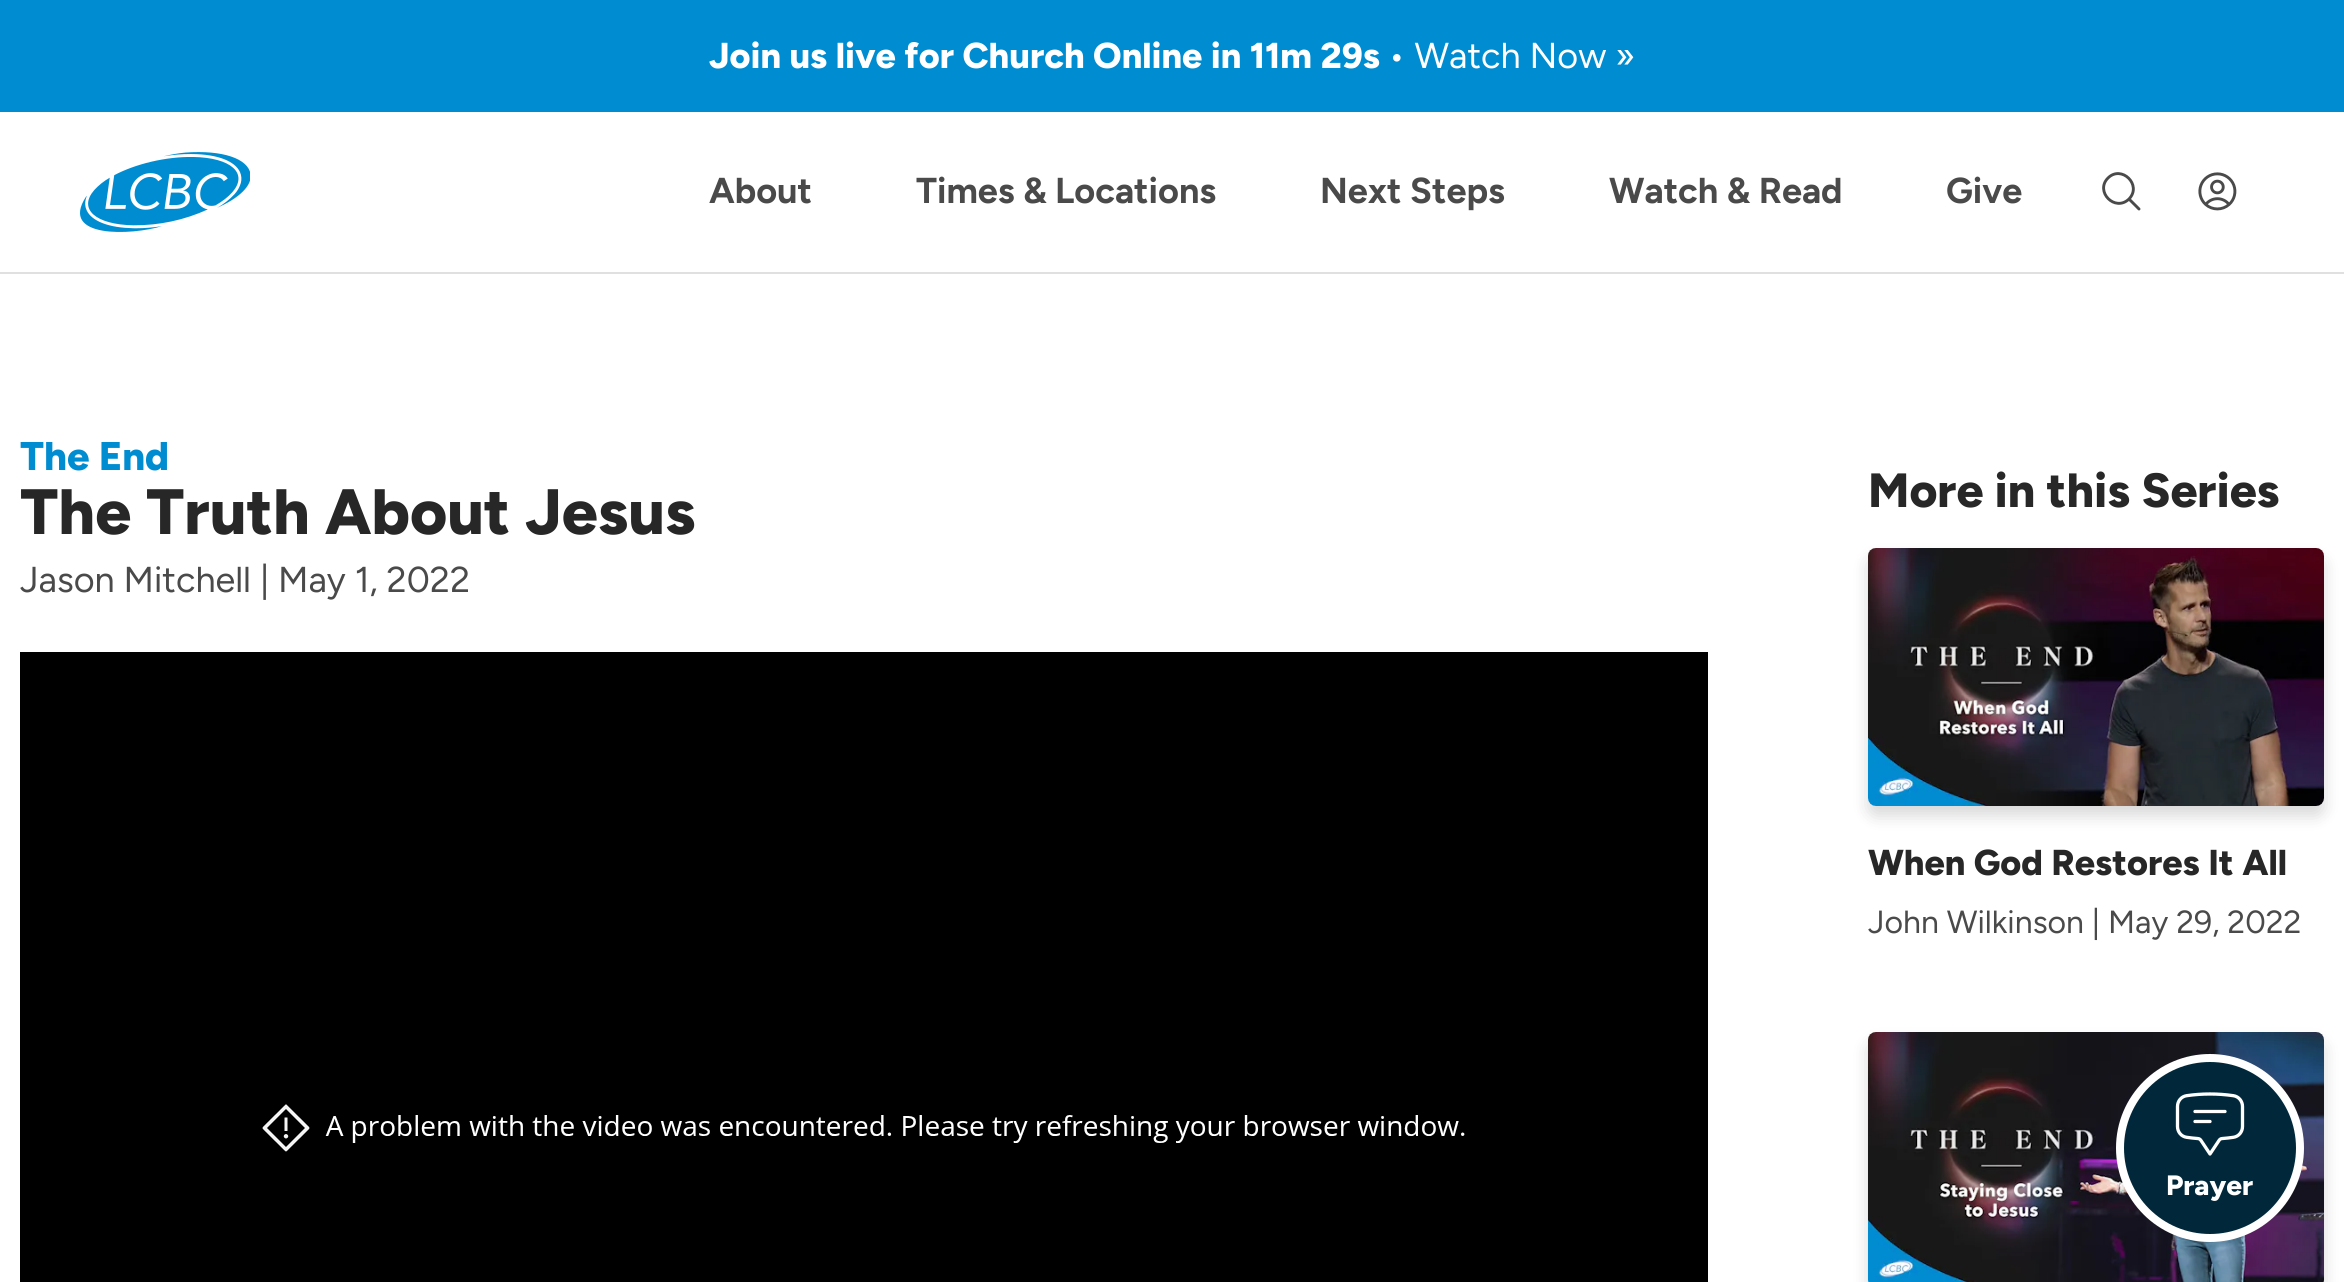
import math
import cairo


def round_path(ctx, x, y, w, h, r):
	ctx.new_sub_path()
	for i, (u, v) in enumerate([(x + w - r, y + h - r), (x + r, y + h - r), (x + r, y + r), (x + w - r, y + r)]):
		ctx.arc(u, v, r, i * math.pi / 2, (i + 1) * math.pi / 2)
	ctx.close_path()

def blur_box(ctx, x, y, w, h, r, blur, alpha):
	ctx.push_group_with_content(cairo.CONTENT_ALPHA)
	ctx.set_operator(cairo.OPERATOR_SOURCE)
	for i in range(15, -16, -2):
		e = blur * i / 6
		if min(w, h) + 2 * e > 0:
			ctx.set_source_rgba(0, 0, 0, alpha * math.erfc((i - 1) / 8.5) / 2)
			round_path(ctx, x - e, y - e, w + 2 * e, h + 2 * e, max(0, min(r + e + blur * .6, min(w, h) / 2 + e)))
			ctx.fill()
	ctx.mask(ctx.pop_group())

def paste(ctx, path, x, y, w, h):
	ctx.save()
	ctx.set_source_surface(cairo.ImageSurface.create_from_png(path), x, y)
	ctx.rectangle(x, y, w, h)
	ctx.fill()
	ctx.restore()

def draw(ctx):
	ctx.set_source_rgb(1, 1, 1)
	ctx.paint()
	ctx.set_source_rgb(0, 0.549, 0.816)
	ctx.rectangle(0, 0, 2344, 112)
	ctx.fill()
	ctx.select_font_face('Figtree ExtraBold')
	ctx.set_font_size(36)
	ctx.set_source_rgb(1, 1, 1)
	ctx.move_to(709, 68)
	ctx.show_text('Join us live for Church Online in 11m 29s')
	ctx.select_font_face('Figtree')
	ctx.move_to(1388, 68)
	ctx.show_text('• Watch Now »')
	ctx.set_source_rgb(0.878, 0.878, 0.878)
	ctx.rectangle(0, 272, 2344, 2)
	ctx.fill()
	paste(ctx, 'media/1.png', 80, 152, 170, 80)
	ctx.select_font_face('Figtree', cairo.FONT_SLANT_NORMAL, cairo.FONT_WEIGHT_BOLD)
	ctx.set_source_rgb(0.29, 0.29, 0.29)
	for x, y, s in [
		(709, 203, 'About'),
		(916, 203, 'Times & Locations'),
		(1320, 203, 'Next Steps'),
		(1609, 203, 'Watch & Read'),
		(1946, 203, 'Give'),
	]:
		ctx.move_to(x, y)
		ctx.show_text(s)
	ctx.new_path()
	ctx.move_to(2139, 209)
	ctx.line_to(2129, 199)
	ctx.move_to(2129, 199)
	ctx.curve_to(2142.5, 185, 2121.5, 164.5, 2108, 178)
	ctx.curve_to(2094.5, 191.5, 2115, 212.5, 2129, 199)
	ctx.close_path()
	ctx.set_line_width(2.9)
	ctx.set_line_cap(cairo.LINE_CAP_ROUND)
	ctx.set_line_join(cairo.LINE_JOIN_ROUND)
	ctx.stroke()
	paste(ctx, 'media/2.png', 2198, 172, 39, 39)
	ctx.select_font_face('Figtree ExtraBold')
	ctx.set_font_size(40)
	ctx.set_source_rgb(0, 0.549, 0.816)
	ctx.move_to(20, 470)
	ctx.show_text('The End')
	ctx.set_font_size(64)
	ctx.set_source_rgb(0.153, 0.153, 0.153)
	ctx.move_to(20, 534)
	ctx.show_text('The Truth About Jesus')
	ctx.select_font_face('Figtree')
	ctx.set_font_size(36)
	ctx.set_source_rgb(0.29, 0.29, 0.29)
	ctx.move_to(20, 592)
	ctx.show_text('Jason Mitchell | May 1, 2022')
	ctx.set_source_rgb(0, 0, 0)
	ctx.rectangle(20, 652, 1688, 630)
	ctx.fill()
	paste(ctx, 'media/3.png', 262, 1104, 1203, 48)
	ctx.select_font_face('Figtree ExtraBold')
	ctx.set_font_size(48)
	ctx.set_source_rgb(0.153, 0.153, 0.153)
	ctx.move_to(1868, 507)
	ctx.show_text('More in this Series')
	ctx.set_source_rgb(0, 0, 0)
	blur_box(ctx, 1868, 558, 456, 258, 8, 8, 0.15)
	ctx.set_source_rgb(0.973, 0.973, 0.988)
	round_path(ctx, 1868, 548, 456, 258, 8)
	ctx.fill()
	paste(ctx, 'media/4.png', 1868, 548, 456, 258)
	ctx.set_font_size(36)
	ctx.set_source_rgb(0.153, 0.153, 0.153)
	ctx.move_to(1868, 875)
	ctx.show_text('When God Restores It All')
	ctx.select_font_face('Figtree')
	ctx.set_font_size(32)
	ctx.set_source_rgb(0.29, 0.29, 0.29)
	ctx.move_to(1868, 933)
	ctx.show_text('John Wilkinson | May 29, 2022')
	ctx.set_source_rgb(0, 0, 0)
	blur_box(ctx, 1868, 1042, 456, 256, 8, 8, 0.15)
	paste(ctx, 'media/5.png', 1868, 1032, 456, 250)
	ctx.set_source_rgb(0, 0.157, 0.227)
	ctx.arc(2210, 1148, 90, 0, 2 * math.pi)
	ctx.fill_preserve()
	ctx.set_source_rgb(1, 1, 1)
	ctx.set_line_width(8)
	ctx.set_line_cap(cairo.LINE_CAP_BUTT)
	ctx.set_line_join(cairo.LINE_JOIN_MITER)
	ctx.stroke()
	paste(ctx, 'media/6.png', 2175, 1092, 70, 64)
	ctx.select_font_face('Figtree ExtraBold')
	ctx.set_font_size(28)
	ctx.move_to(2166, 1195)
	ctx.show_text('Prayer')


surface = cairo.ImageSurface(cairo.FORMAT_RGB24, 2344, 1282)
ctx = cairo.Context(surface)
options = cairo.FontOptions()
options.set_hint_metrics(cairo.HINT_METRICS_OFF)
options.set_hint_style(cairo.HINT_STYLE_NONE)
ctx.set_font_options(options)
ctx.set_miter_limit(4)
draw(ctx)
surface.write_to_png('image.png')
